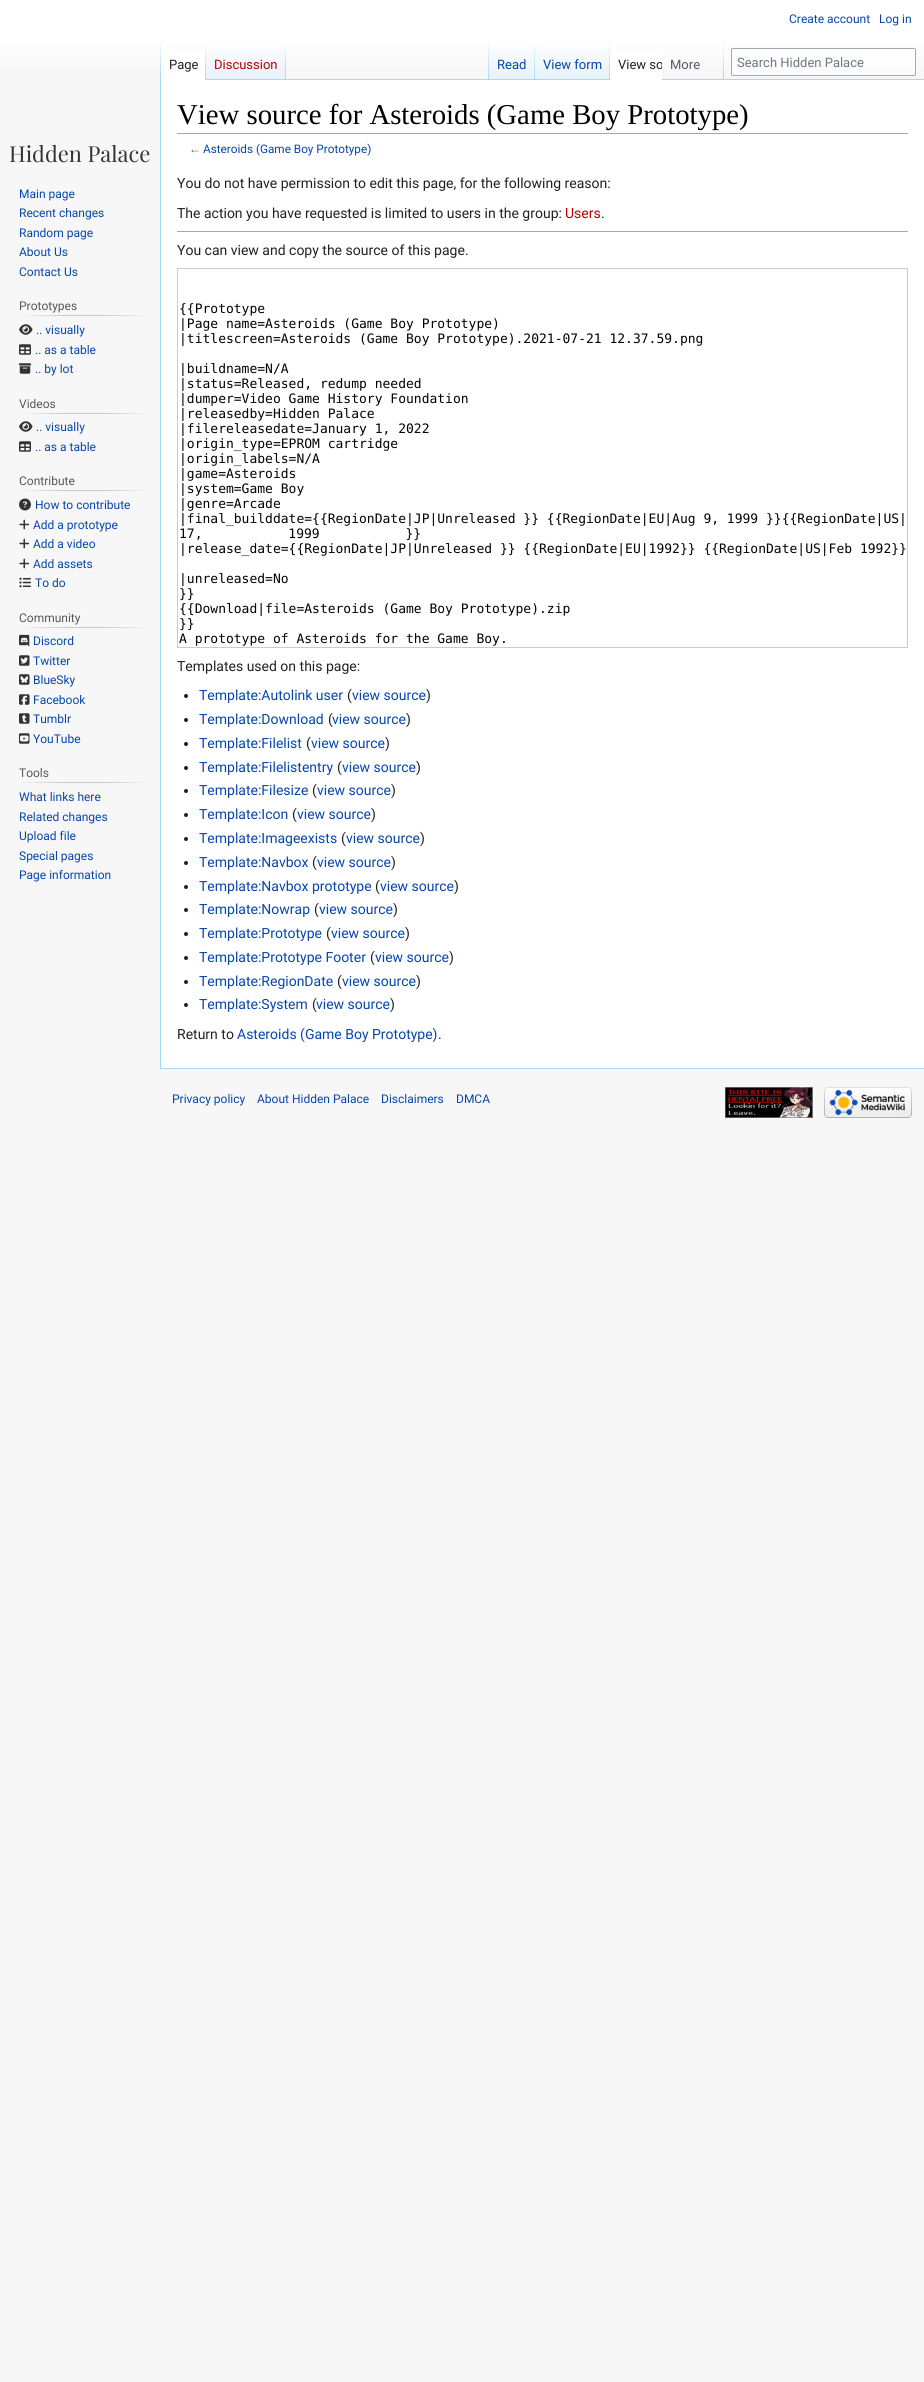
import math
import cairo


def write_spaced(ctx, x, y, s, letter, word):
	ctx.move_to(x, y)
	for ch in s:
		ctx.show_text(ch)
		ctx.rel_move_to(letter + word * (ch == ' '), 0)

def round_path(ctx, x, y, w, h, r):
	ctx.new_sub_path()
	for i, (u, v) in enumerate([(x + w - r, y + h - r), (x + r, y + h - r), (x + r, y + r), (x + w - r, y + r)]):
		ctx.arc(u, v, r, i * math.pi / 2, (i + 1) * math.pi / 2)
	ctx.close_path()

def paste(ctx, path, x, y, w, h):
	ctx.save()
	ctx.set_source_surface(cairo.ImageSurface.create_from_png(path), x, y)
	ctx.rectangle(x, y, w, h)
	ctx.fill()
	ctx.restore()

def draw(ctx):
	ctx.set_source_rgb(0.965, 0.965, 0.965)
	ctx.paint()
	gradient = cairo.LinearGradient(462, 0, 462, 80)
	gradient.add_color_stop_rgba(0.5, 1, 1, 1, 1)
	gradient.add_color_stop_rgba(1, 0.965, 0.965, 0.965, 1)
	ctx.set_source(gradient)
	ctx.rectangle(0, 0, 924, 69)
	ctx.fill()
	ctx.select_font_face('Roboto')
	ctx.set_font_size(12)
	ctx.set_source_rgb(0.024, 0.271, 0.678)
	ctx.move_to(789, 23)
	ctx.show_text('Create account')
	ctx.move_to(879, 23)
	ctx.show_text('Log in')
	ctx.set_source_rgb(0.655, 0.843, 0.976)
	ctx.rectangle(160, 1068, 764, 1)
	ctx.fill()
	ctx.rectangle(160, 79, 1, 990)
	ctx.fill()
	gradient = cairo.LinearGradient(161, 40, 161, 80)
	gradient.add_color_stop_rgba(0, 0.655, 0.843, 0.976, 0)
	gradient.add_color_stop_rgba(1, 0.655, 0.843, 0.976, 1)
	ctx.set_source(gradient)
	ctx.rectangle(160, 40, 1, 40)
	ctx.fill()
	ctx.set_source_rgb(1, 1, 1)
	ctx.rectangle(161, 51, 44, 29)
	ctx.fill()
	gradient = cairo.LinearGradient(206, 40, 206, 80)
	gradient.add_color_stop_rgba(0, 1, 1, 1, 1)
	gradient.add_color_stop_rgba(1, 0.655, 0.843, 0.976, 1)
	ctx.set_source(gradient)
	ctx.rectangle(205, 40, 1, 40)
	ctx.fill()
	ctx.set_font_size(13)
	ctx.set_source_rgb(0.125, 0.129, 0.133)
	ctx.move_to(169, 69)
	ctx.show_text('Page')
	gradient = cairo.LinearGradient(246, 80, 246, 40)
	gradient.add_color_stop_rgba(0, 0.467, 0.757, 0.965, 1)
	gradient.add_color_stop_rgba(0.03, 0.91, 0.949, 0.973, 1)
	gradient.add_color_stop_rgba(1, 1, 1, 1, 1)
	ctx.set_source(gradient)
	ctx.rectangle(206, 46, 80, 34)
	ctx.fill()
	gradient = cairo.LinearGradient(286, 40, 286, 80)
	gradient.add_color_stop_rgba(0, 0.655, 0.843, 0.976, 0)
	gradient.add_color_stop_rgba(1, 0.655, 0.843, 0.976, 1)
	ctx.set_source(gradient)
	ctx.rectangle(285, 40, 1, 40)
	ctx.fill()
	ctx.set_source_rgb(0.729, 0, 0)
	ctx.move_to(214, 69)
	ctx.show_text('Discussion')
	ctx.set_source_rgb(0.655, 0.843, 0.976)
	ctx.rectangle(286, 79, 638, 1)
	ctx.fill()
	gradient = cairo.LinearGradient(489, 40, 489, 80)
	gradient.add_color_stop_rgba(0, 0.655, 0.843, 0.976, 0)
	gradient.add_color_stop_rgba(1, 0.655, 0.843, 0.976, 1)
	ctx.set_source(gradient)
	ctx.rectangle(488, 40, 1, 40)
	ctx.fill()
	gradient = cairo.LinearGradient(512, 80, 512, 40)
	gradient.add_color_stop_rgba(0, 0.467, 0.757, 0.965, 1)
	gradient.add_color_stop_rgba(0.03, 0.91, 0.949, 0.973, 1)
	gradient.add_color_stop_rgba(1, 1, 1, 1, 1)
	ctx.set_source(gradient)
	ctx.rectangle(489, 46, 46, 33)
	ctx.fill()
	gradient = cairo.LinearGradient(535, 40, 535, 80)
	gradient.add_color_stop_rgba(0, 0.655, 0.843, 0.976, 0)
	gradient.add_color_stop_rgba(1, 0.655, 0.843, 0.976, 1)
	ctx.set_source(gradient)
	ctx.rectangle(534, 40, 1, 40)
	ctx.fill()
	ctx.set_source_rgb(0.024, 0.271, 0.678)
	ctx.move_to(497, 69)
	ctx.show_text('Read')
	gradient = cairo.LinearGradient(573, 80, 573, 40)
	gradient.add_color_stop_rgba(0, 0.467, 0.757, 0.965, 1)
	gradient.add_color_stop_rgba(0.03, 0.91, 0.949, 0.973, 1)
	gradient.add_color_stop_rgba(1, 1, 1, 1, 1)
	ctx.set_source(gradient)
	ctx.rectangle(535, 46, 75, 33)
	ctx.fill()
	gradient = cairo.LinearGradient(610, 40, 610, 80)
	gradient.add_color_stop_rgba(0, 0.655, 0.843, 0.976, 0)
	gradient.add_color_stop_rgba(1, 0.655, 0.843, 0.976, 1)
	ctx.set_source(gradient)
	ctx.rectangle(609, 40, 1, 40)
	ctx.fill()
	ctx.set_source_rgb(0.024, 0.271, 0.678)
	ctx.move_to(543, 69)
	ctx.show_text('View form')
	ctx.set_source_rgb(1, 1, 1)
	ctx.rectangle(610, 51, 52, 29)
	ctx.fill()
	ctx.save()
	ctx.rectangle(610, 40, 52, 40)
	ctx.clip()
	ctx.set_source_rgb(0.125, 0.129, 0.133)
	ctx.move_to(618, 69)
	ctx.show_text('View so')
	ctx.restore()
	gradient = cairo.LinearGradient(724, 40, 724, 80)
	gradient.add_color_stop_rgba(0, 0.655, 0.843, 0.976, 0)
	gradient.add_color_stop_rgba(1, 0.655, 0.843, 0.976, 1)
	ctx.set_source(gradient)
	ctx.rectangle(723, 40, 1, 40)
	ctx.fill()
	ctx.set_source_rgb(0.329, 0.349, 0.365)
	ctx.move_to(670, 69)
	ctx.show_text('More')
	ctx.set_source_rgba(1, 1, 1, 0.5)
	round_path(ctx, 731.5, 48.5, 184, 27, 1.5)
	ctx.fill_preserve()
	ctx.set_source_rgb(0.635, 0.663, 0.694)
	ctx.set_line_width(1)
	ctx.stroke()
	ctx.set_source_rgb(0.447, 0.467, 0.49)
	ctx.move_to(737, 67)
	ctx.show_text('Search Hidden Palace')
	ctx.select_font_face('Playfair Display')
	ctx.set_font_size(22)
	ctx.set_source_rgb(0.2, 0.2, 0.2)
	ctx.move_to(9, 162)
	ctx.show_text('Hidden Palace')
	ctx.select_font_face('Roboto')
	ctx.set_font_size(12)
	ctx.set_source_rgb(0.024, 0.271, 0.678)
	for x, y, s in [
		(19, 198, 'Main page'),
		(19, 217, 'Recent changes'),
		(19, 237, 'Random page'),
		(19, 256, 'About Us'),
		(19, 276, 'Contact Us'),
	]:
		ctx.move_to(x, y)
		ctx.show_text(s)
	gradient = cairo.LinearGradient(19, 316, 150, 316)
	gradient.add_color_stop_rgba(0, 0.965, 0.965, 0.965, 1)
	gradient.add_color_stop_rgba(0.33, 0.784, 0.8, 0.82, 1)
	gradient.add_color_stop_rgba(0.66, 0.784, 0.8, 0.82, 1)
	gradient.add_color_stop_rgba(1, 0.965, 0.965, 0.965, 1)
	ctx.set_source(gradient)
	ctx.rectangle(19, 315, 131, 1)
	ctx.fill()
	ctx.set_source_rgb(0.329, 0.349, 0.365)
	ctx.move_to(19, 310)
	ctx.show_text('Prototypes')
	paste(ctx, 'media/1.png', 19, 324, 14, 11)
	ctx.set_source_rgb(0.024, 0.271, 0.678)
	ctx.move_to(36, 334)
	ctx.show_text('.. visually')
	paste(ctx, 'media/2.png', 19, 344, 12, 11)
	ctx.move_to(35, 354)
	ctx.show_text('.. as a table')
	paste(ctx, 'media/3.png', 19, 363, 12, 11)
	ctx.move_to(35, 373)
	ctx.show_text('.. by lot')
	gradient = cairo.LinearGradient(19, 414, 150, 414)
	gradient.add_color_stop_rgba(0, 0.965, 0.965, 0.965, 1)
	gradient.add_color_stop_rgba(0.33, 0.784, 0.8, 0.82, 1)
	gradient.add_color_stop_rgba(0.66, 0.784, 0.8, 0.82, 1)
	gradient.add_color_stop_rgba(1, 0.965, 0.965, 0.965, 1)
	ctx.set_source(gradient)
	ctx.rectangle(19, 413, 131, 1)
	ctx.fill()
	ctx.set_source_rgb(0.329, 0.349, 0.365)
	ctx.move_to(19, 408)
	ctx.show_text('Videos')
	paste(ctx, 'media/1.png', 19, 421, 14, 11)
	ctx.set_source_rgb(0.024, 0.271, 0.678)
	ctx.move_to(36, 431)
	ctx.show_text('.. visually')
	paste(ctx, 'media/2.png', 19, 441, 12, 11)
	ctx.move_to(35, 451)
	ctx.show_text('.. as a table')
	gradient = cairo.LinearGradient(19, 491, 150, 491)
	gradient.add_color_stop_rgba(0, 0.965, 0.965, 0.965, 1)
	gradient.add_color_stop_rgba(0.33, 0.784, 0.8, 0.82, 1)
	gradient.add_color_stop_rgba(0.66, 0.784, 0.8, 0.82, 1)
	gradient.add_color_stop_rgba(1, 0.965, 0.965, 0.965, 1)
	ctx.set_source(gradient)
	ctx.rectangle(19, 490, 131, 1)
	ctx.fill()
	ctx.set_source_rgb(0.329, 0.349, 0.365)
	ctx.move_to(19, 485)
	ctx.show_text('Contribute')
	paste(ctx, 'media/4.png', 19, 498, 12, 13)
	ctx.set_source_rgb(0.024, 0.271, 0.678)
	ctx.move_to(35, 509)
	ctx.show_text('How to contribute')
	paste(ctx, 'media/5.png', 19, 519, 11, 11)
	ctx.move_to(33, 529)
	ctx.show_text('Add a prototype')
	paste(ctx, 'media/5.png', 19, 538, 11, 11)
	ctx.move_to(33, 548)
	ctx.show_text('Add a video')
	paste(ctx, 'media/5.png', 19, 558, 11, 11)
	ctx.move_to(33, 568)
	ctx.show_text('Add assets')
	paste(ctx, 'media/6.png', 19, 577, 12, 11)
	ctx.move_to(35, 587)
	ctx.show_text('To do')
	gradient = cairo.LinearGradient(19, 628, 150, 628)
	gradient.add_color_stop_rgba(0, 0.965, 0.965, 0.965, 1)
	gradient.add_color_stop_rgba(0.33, 0.784, 0.8, 0.82, 1)
	gradient.add_color_stop_rgba(0.66, 0.784, 0.8, 0.82, 1)
	gradient.add_color_stop_rgba(1, 0.965, 0.965, 0.965, 1)
	ctx.set_source(gradient)
	ctx.rectangle(19, 627, 131, 1)
	ctx.fill()
	ctx.set_source_rgb(0.329, 0.349, 0.365)
	ctx.move_to(19, 622)
	ctx.show_text('Community')
	paste(ctx, 'media/7.png', 19, 634, 11, 13)
	ctx.set_source_rgb(0.024, 0.271, 0.678)
	ctx.move_to(33, 645)
	ctx.show_text('Discord')
	paste(ctx, 'media/8.png', 19, 655, 11, 11)
	ctx.move_to(33, 665)
	ctx.show_text('Twitter')
	paste(ctx, 'media/9.png', 19, 674, 11, 11)
	ctx.move_to(33, 684)
	ctx.show_text('BlueSky')
	paste(ctx, 'media/10.png', 19, 694, 11, 11)
	ctx.move_to(33, 704)
	ctx.show_text('Facebook')
	paste(ctx, 'media/11.png', 19, 713, 11, 11)
	ctx.move_to(33, 723)
	ctx.show_text('Tumblr')
	paste(ctx, 'media/12.png', 19, 733, 11, 11)
	ctx.move_to(33, 743)
	ctx.show_text('YouTube')
	gradient = cairo.LinearGradient(19, 783, 150, 783)
	gradient.add_color_stop_rgba(0, 0.965, 0.965, 0.965, 1)
	gradient.add_color_stop_rgba(0.33, 0.784, 0.8, 0.82, 1)
	gradient.add_color_stop_rgba(0.66, 0.784, 0.8, 0.82, 1)
	gradient.add_color_stop_rgba(1, 0.965, 0.965, 0.965, 1)
	ctx.set_source(gradient)
	ctx.rectangle(19, 782, 131, 1)
	ctx.fill()
	ctx.set_source_rgb(0.329, 0.349, 0.365)
	ctx.move_to(19, 777)
	ctx.show_text('Tools')
	ctx.set_source_rgb(0.024, 0.271, 0.678)
	for x, y, s in [
		(19, 801, 'What links here'),
		(19, 821, 'Related changes'),
		(19, 840, 'Upload file'),
		(19, 860, 'Special pages'),
		(19, 879, 'Page information'),
	]:
		ctx.move_to(x, y)
		ctx.show_text(s)
	ctx.set_source_rgb(1, 1, 1)
	ctx.rectangle(161, 80, 763, 988)
	ctx.fill()
	ctx.set_source_rgb(0.635, 0.663, 0.694)
	ctx.rectangle(177, 133, 731, 1)
	ctx.fill()
	ctx.select_font_face('Liberation Serif')
	ctx.set_font_size(28.75)
	ctx.set_source_rgb(0, 0, 0)
	ctx.move_to(177, 124)
	ctx.show_text('View source for Asteroids (Game Boy Prototype)')
	ctx.select_font_face('Liberation Sans')
	ctx.set_font_size(11.75)
	ctx.set_source_rgb(0.329, 0.349, 0.365)
	ctx.move_to(189, 153)
	ctx.show_text('←')
	ctx.select_font_face('Roboto')
	ctx.set_source_rgb(0.024, 0.271, 0.678)
	ctx.move_to(203, 153)
	ctx.show_text('Asteroids (Game Boy Prototype)')
	ctx.set_font_size(14)
	ctx.set_source_rgb(0.125, 0.129, 0.133)
	ctx.move_to(177, 188)
	ctx.show_text('You do not have permission to edit this page, for the following reason:')
	ctx.move_to(177, 218)
	ctx.show_text('The action you have requested is limited to users in the group:')
	ctx.set_source_rgb(0.729, 0, 0)
	ctx.move_to(565, 218)
	ctx.show_text('Users')
	ctx.set_source_rgb(0.125, 0.129, 0.133)
	ctx.move_to(601, 218)
	ctx.show_text('.')
	ctx.set_source_rgb(0.635, 0.663, 0.694)
	ctx.rectangle(177, 231, 731, 1)
	ctx.fill()
	ctx.set_source_rgb(0.125, 0.129, 0.133)
	ctx.move_to(177, 255)
	ctx.show_text('You can view and copy the source of this page.')
	ctx.rectangle(177.5, 268.5, 730, 379)
	ctx.set_source_rgb(0.784, 0.8, 0.82)
	ctx.stroke()
	ctx.select_font_face('DejaVu Sans Mono')
	ctx.set_font_size(13)
	ctx.set_source_rgb(0, 0, 0)
	for x, y, s in [
		(179, 313, '{{Prototype'),
		(179, 328, '|Page name=Asteroids (Game Boy Prototype)'),
		(179, 343, '|titlescreen=Asteroids (Game Boy Prototype).2021-07-21 12.37.59.png'),
		(179, 373, '|buildname=N/A'),
		(179, 388, '|status=Released, redump needed'),
		(179, 403, '|dumper=Video Game History Foundation'),
		(179, 418, '|releasedby=Hidden Palace'),
		(179, 433, '|filereleasedate=January 1, 2022'),
		(179, 448, '|origin_type=EPROM cartridge'),
		(179, 463, '|origin_labels=N/A'),
		(179, 478, '|game=Asteroids'),
		(179, 493, '|system=Game Boy'),
		(179, 508, '|genre=Arcade'),
		(179, 523, '|final_builddate={{RegionDate|JP|Unreleased }} {{RegionDate|EU|Aug 9, 1999 }}{{RegionDate|US|'),
	]:
		ctx.move_to(x, y)
		ctx.show_text(s)
	write_spaced(ctx, 179, 538, '17, 1999 }}', 0, 78)
	for x, y, s in [
		(179, 553, '|release_date={{RegionDate|JP|Unreleased }} {{RegionDate|EU|1992}} {{RegionDate|US|Feb 1992}}'),
		(179, 583, '|unreleased=No'),
		(179, 598, '}}'),
		(179, 613, '{{Download|file=Asteroids (Game Boy Prototype).zip'),
		(179, 628, '}}'),
		(179, 643, 'A prototype of Asteroids for the Game Boy.'),
	]:
		ctx.move_to(x, y)
		ctx.show_text(s)
	ctx.select_font_face('Roboto')
	ctx.set_font_size(14)
	ctx.set_source_rgb(0.125, 0.129, 0.133)
	ctx.move_to(177, 671)
	ctx.show_text('Templates used on this page:')
	ctx.new_path()
	ctx.arc(186, 696, 2, 0, 2 * math.pi)
	ctx.fill()
	ctx.set_source_rgb(0.024, 0.271, 0.678)
	ctx.move_to(199, 700)
	ctx.show_text('Template:Autolink user')
	ctx.set_source_rgb(0.125, 0.129, 0.133)
	ctx.move_to(347, 700)
	ctx.show_text('(')
	ctx.set_source_rgb(0.024, 0.271, 0.678)
	ctx.move_to(352, 700)
	ctx.show_text('view source')
	ctx.set_source_rgb(0.125, 0.129, 0.133)
	ctx.move_to(426, 700)
	ctx.show_text(')')
	ctx.new_path()
	ctx.arc(186, 720, 2, 0, 2 * math.pi)
	ctx.fill()
	ctx.set_source_rgb(0.024, 0.271, 0.678)
	ctx.move_to(199, 724)
	ctx.show_text('Template:Download')
	ctx.set_source_rgb(0.125, 0.129, 0.133)
	ctx.move_to(328, 724)
	ctx.show_text('(')
	ctx.set_source_rgb(0.024, 0.271, 0.678)
	ctx.move_to(332, 724)
	ctx.show_text('view source')
	ctx.set_source_rgb(0.125, 0.129, 0.133)
	ctx.move_to(406, 724)
	ctx.show_text(')')
	ctx.new_path()
	ctx.arc(186, 744, 2, 0, 2 * math.pi)
	ctx.fill()
	ctx.set_source_rgb(0.024, 0.271, 0.678)
	ctx.move_to(199, 748)
	ctx.show_text('Template:Filelist')
	ctx.set_source_rgb(0.125, 0.129, 0.133)
	ctx.move_to(306, 748)
	ctx.show_text('(')
	ctx.set_source_rgb(0.024, 0.271, 0.678)
	ctx.move_to(311, 748)
	ctx.show_text('view source')
	ctx.set_source_rgb(0.125, 0.129, 0.133)
	ctx.move_to(385, 748)
	ctx.show_text(')')
	ctx.new_path()
	ctx.arc(186, 768, 2, 0, 2 * math.pi)
	ctx.fill()
	ctx.set_source_rgb(0.024, 0.271, 0.678)
	ctx.move_to(199, 772)
	ctx.show_text('Template:Filelistentry')
	ctx.set_source_rgb(0.125, 0.129, 0.133)
	ctx.move_to(337, 772)
	ctx.show_text('(')
	ctx.set_source_rgb(0.024, 0.271, 0.678)
	ctx.move_to(342, 772)
	ctx.show_text('view source')
	ctx.set_source_rgb(0.125, 0.129, 0.133)
	ctx.move_to(416, 772)
	ctx.show_text(')')
	ctx.new_path()
	ctx.arc(186, 791, 2, 0, 2 * math.pi)
	ctx.fill()
	ctx.set_source_rgb(0.024, 0.271, 0.678)
	ctx.move_to(199, 795)
	ctx.show_text('Template:Filesize')
	ctx.set_source_rgb(0.125, 0.129, 0.133)
	ctx.move_to(312, 795)
	ctx.show_text('(')
	ctx.set_source_rgb(0.024, 0.271, 0.678)
	ctx.move_to(317, 795)
	ctx.show_text('view source')
	ctx.set_source_rgb(0.125, 0.129, 0.133)
	ctx.move_to(391, 795)
	ctx.show_text(')')
	ctx.new_path()
	ctx.arc(186, 815, 2, 0, 2 * math.pi)
	ctx.fill()
	ctx.set_source_rgb(0.024, 0.271, 0.678)
	ctx.move_to(199, 819)
	ctx.show_text('Template:Icon')
	ctx.set_source_rgb(0.125, 0.129, 0.133)
	ctx.move_to(292, 819)
	ctx.show_text('(')
	ctx.set_source_rgb(0.024, 0.271, 0.678)
	ctx.move_to(297, 819)
	ctx.show_text('view source')
	ctx.set_source_rgb(0.125, 0.129, 0.133)
	ctx.move_to(371, 819)
	ctx.show_text(')')
	ctx.new_path()
	ctx.arc(186, 839, 2, 0, 2 * math.pi)
	ctx.fill()
	ctx.set_source_rgb(0.024, 0.271, 0.678)
	ctx.move_to(199, 843)
	ctx.show_text('Template:Imageexists')
	ctx.set_source_rgb(0.125, 0.129, 0.133)
	ctx.move_to(341, 843)
	ctx.show_text('(')
	ctx.set_source_rgb(0.024, 0.271, 0.678)
	ctx.move_to(346, 843)
	ctx.show_text('view source')
	ctx.set_source_rgb(0.125, 0.129, 0.133)
	ctx.move_to(420, 843)
	ctx.show_text(')')
	ctx.new_path()
	ctx.arc(186, 863, 2, 0, 2 * math.pi)
	ctx.fill()
	ctx.set_source_rgb(0.024, 0.271, 0.678)
	ctx.move_to(199, 867)
	ctx.show_text('Template:Navbox')
	ctx.set_source_rgb(0.125, 0.129, 0.133)
	ctx.move_to(312, 867)
	ctx.show_text('(')
	ctx.set_source_rgb(0.024, 0.271, 0.678)
	ctx.move_to(317, 867)
	ctx.show_text('view source')
	ctx.set_source_rgb(0.125, 0.129, 0.133)
	ctx.move_to(391, 867)
	ctx.show_text(')')
	ctx.new_path()
	ctx.arc(186, 887, 2, 0, 2 * math.pi)
	ctx.fill()
	ctx.set_source_rgb(0.024, 0.271, 0.678)
	ctx.move_to(199, 891)
	ctx.show_text('Template:Navbox prototype')
	ctx.set_source_rgb(0.125, 0.129, 0.133)
	ctx.move_to(375, 891)
	ctx.show_text('(')
	ctx.set_source_rgb(0.024, 0.271, 0.678)
	ctx.move_to(380, 891)
	ctx.show_text('view source')
	ctx.set_source_rgb(0.125, 0.129, 0.133)
	ctx.move_to(454, 891)
	ctx.show_text(')')
	ctx.new_path()
	ctx.arc(186, 910, 2, 0, 2 * math.pi)
	ctx.fill()
	ctx.set_source_rgb(0.024, 0.271, 0.678)
	ctx.move_to(199, 914)
	ctx.show_text('Template:Nowrap')
	ctx.set_source_rgb(0.125, 0.129, 0.133)
	ctx.move_to(314, 914)
	ctx.show_text('(')
	ctx.set_source_rgb(0.024, 0.271, 0.678)
	ctx.move_to(319, 914)
	ctx.show_text('view source')
	ctx.set_source_rgb(0.125, 0.129, 0.133)
	ctx.move_to(393, 914)
	ctx.show_text(')')
	ctx.new_path()
	ctx.arc(186, 934, 2, 0, 2 * math.pi)
	ctx.fill()
	ctx.set_source_rgb(0.024, 0.271, 0.678)
	ctx.move_to(199, 938)
	ctx.show_text('Template:Prototype')
	ctx.set_source_rgb(0.125, 0.129, 0.133)
	ctx.move_to(326, 938)
	ctx.show_text('(')
	ctx.set_source_rgb(0.024, 0.271, 0.678)
	ctx.move_to(331, 938)
	ctx.show_text('view source')
	ctx.set_source_rgb(0.125, 0.129, 0.133)
	ctx.move_to(405, 938)
	ctx.show_text(')')
	ctx.new_path()
	ctx.arc(186, 958, 2, 0, 2 * math.pi)
	ctx.fill()
	ctx.set_source_rgb(0.024, 0.271, 0.678)
	ctx.move_to(199, 962)
	ctx.show_text('Template:Prototype Footer')
	ctx.set_source_rgb(0.125, 0.129, 0.133)
	ctx.move_to(370, 962)
	ctx.show_text('(')
	ctx.set_source_rgb(0.024, 0.271, 0.678)
	ctx.move_to(375, 962)
	ctx.show_text('view source')
	ctx.set_source_rgb(0.125, 0.129, 0.133)
	ctx.move_to(449, 962)
	ctx.show_text(')')
	ctx.new_path()
	ctx.arc(186, 982, 2, 0, 2 * math.pi)
	ctx.fill()
	ctx.set_source_rgb(0.024, 0.271, 0.678)
	ctx.move_to(199, 986)
	ctx.show_text('Template:RegionDate')
	ctx.set_source_rgb(0.125, 0.129, 0.133)
	ctx.move_to(337, 986)
	ctx.show_text('(')
	ctx.set_source_rgb(0.024, 0.271, 0.678)
	ctx.move_to(342, 986)
	ctx.show_text('view source')
	ctx.set_source_rgb(0.125, 0.129, 0.133)
	ctx.move_to(416, 986)
	ctx.show_text(')')
	ctx.new_path()
	ctx.arc(186, 1005, 2, 0, 2 * math.pi)
	ctx.fill()
	ctx.set_source_rgb(0.024, 0.271, 0.678)
	ctx.move_to(199, 1009)
	ctx.show_text('Template:System')
	ctx.set_source_rgb(0.125, 0.129, 0.133)
	ctx.move_to(312, 1009)
	ctx.show_text('(')
	ctx.set_source_rgb(0.024, 0.271, 0.678)
	ctx.move_to(316, 1009)
	ctx.show_text('view source')
	ctx.set_source_rgb(0.125, 0.129, 0.133)
	ctx.move_to(390, 1009)
	ctx.show_text(')')
	ctx.move_to(177, 1039)
	ctx.show_text('Return to')
	ctx.set_source_rgb(0.024, 0.271, 0.678)
	ctx.move_to(237, 1039)
	ctx.show_text('Asteroids (Game Boy Prototype)')
	ctx.set_source_rgb(0.125, 0.129, 0.133)
	ctx.move_to(438, 1039)
	ctx.show_text('.')
	ctx.set_font_size(12)
	ctx.set_source_rgb(0.024, 0.271, 0.678)
	for x, y, s in [
		(172, 1103, 'Privacy policy'),
		(257, 1103, 'About Hidden Palace'),
		(381, 1103, 'Disclaimers'),
		(456, 1103, 'DMCA'),
	]:
		ctx.move_to(x, y)
		ctx.show_text(s)
	paste(ctx, 'media/13.png', 725, 1087, 88, 31)
	paste(ctx, 'media/14.png', 824, 1087, 88, 31)


surface = cairo.ImageSurface(cairo.FORMAT_RGB24, 924, 2382)
ctx = cairo.Context(surface)
options = cairo.FontOptions()
options.set_hint_metrics(cairo.HINT_METRICS_OFF)
options.set_hint_style(cairo.HINT_STYLE_NONE)
ctx.set_font_options(options)
ctx.set_miter_limit(4)
draw(ctx)
surface.write_to_png('image.png')
